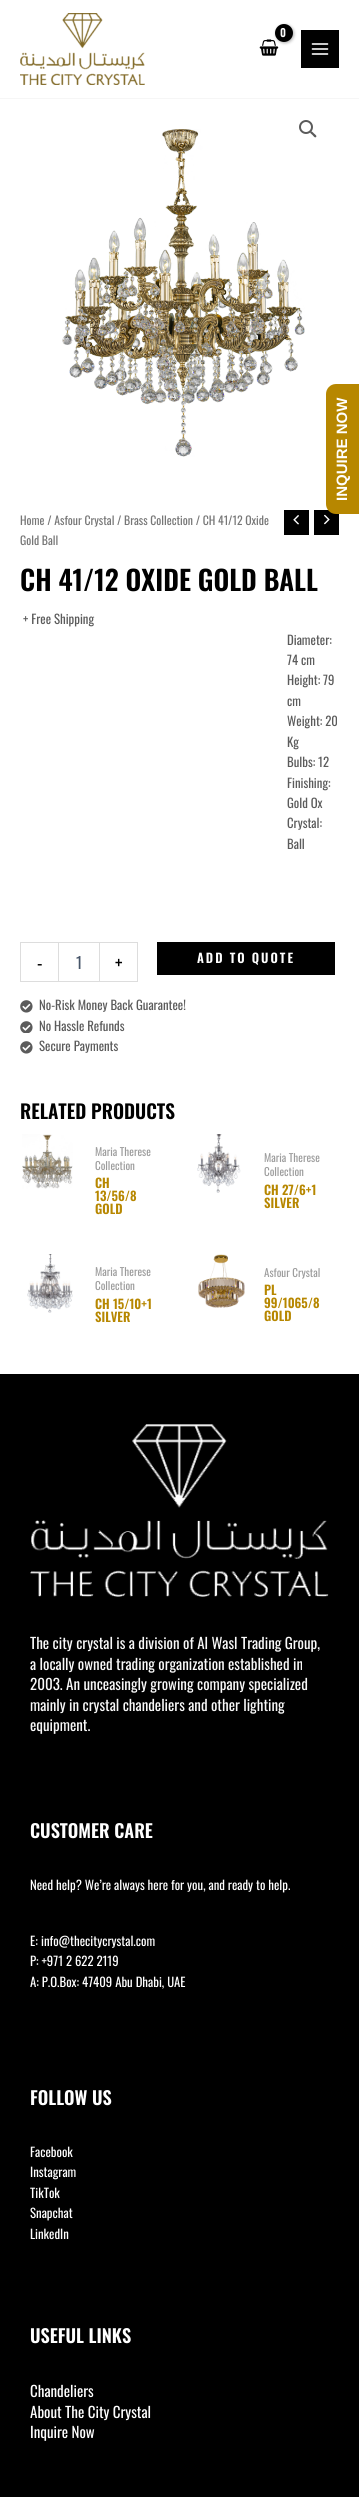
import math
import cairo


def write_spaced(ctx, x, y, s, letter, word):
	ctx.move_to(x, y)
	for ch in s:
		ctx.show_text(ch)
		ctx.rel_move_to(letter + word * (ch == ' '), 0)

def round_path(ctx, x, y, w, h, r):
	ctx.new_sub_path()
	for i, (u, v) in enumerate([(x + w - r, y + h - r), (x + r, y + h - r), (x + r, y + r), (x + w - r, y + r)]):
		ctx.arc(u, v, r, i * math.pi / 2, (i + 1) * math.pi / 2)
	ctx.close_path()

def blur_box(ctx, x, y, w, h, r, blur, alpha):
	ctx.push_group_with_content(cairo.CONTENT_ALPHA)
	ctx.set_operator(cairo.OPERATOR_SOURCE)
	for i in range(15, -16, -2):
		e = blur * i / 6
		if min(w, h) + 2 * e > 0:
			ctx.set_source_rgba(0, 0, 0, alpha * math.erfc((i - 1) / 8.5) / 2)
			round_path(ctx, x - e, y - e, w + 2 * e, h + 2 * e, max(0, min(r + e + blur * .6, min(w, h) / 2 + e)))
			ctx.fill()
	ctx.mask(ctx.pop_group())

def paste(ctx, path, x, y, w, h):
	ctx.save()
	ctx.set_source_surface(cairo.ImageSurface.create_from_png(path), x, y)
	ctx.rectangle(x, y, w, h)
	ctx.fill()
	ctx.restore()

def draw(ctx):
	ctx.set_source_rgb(1, 1, 1)
	ctx.paint()
	ctx.set_source_rgb(0.961, 0.961, 0.961)
	ctx.rectangle(0, 98, 359, 1)
	ctx.fill()
	paste(ctx, 'media/1.png', 20, 13, 125, 72)
	paste(ctx, 'media/2.png', 259, 39, 20, 17)
	ctx.set_source_rgb(0, 0, 0)
	blur_box(ctx, 276, 25, 18, 18, 9, 1.5, 0.3)
	ctx.set_source_rgb(0, 0, 0)
	ctx.arc(284, 33, 9, 0, 2 * math.pi)
	ctx.fill()
	ctx.select_font_face('Oswald SemiBold')
	ctx.set_font_size(11)
	ctx.set_source_rgb(1, 1, 1)
	ctx.move_to(280, 37)
	ctx.show_text('0')
	ctx.set_source_rgb(0.004, 0.004, 0.004)
	ctx.rectangle(301, 30, 38, 38)
	ctx.fill()
	paste(ctx, 'media/3.png', 311, 43, 18, 12)
	paste(ctx, 'media/4.png', 62, 129, 243, 328)
	ctx.arc(306, 127, 6, 0, 2 * math.pi)
	ctx.set_source_rgb(0.357, 0.357, 0.357)
	ctx.stroke()
	ctx.new_path()
	ctx.move_to(310.5, 131.5)
	ctx.curve_to(311.5, 130.5, 313.5, 133, 314, 133.5)
	ctx.curve_to(314.5, 134, 317.5, 136, 316, 137)
	ctx.curve_to(315, 138.5, 313, 135.5, 312.5, 135)
	ctx.curve_to(312, 134.5, 309, 132.5, 310.5, 131.5)
	ctx.close_path()
	ctx.fill()
	ctx.select_font_face('Oswald')
	ctx.set_font_size(11.75)
	ctx.set_source_rgb(0.467, 0.467, 0.467)
	ctx.move_to(20, 525)
	ctx.show_text('Home / Asfour Crystal / Brass Collection / CH 41/12 Oxide')
	ctx.move_to(20, 545)
	ctx.show_text('Gold Ball')
	ctx.set_source_rgb(0.004, 0.004, 0.004)
	ctx.rectangle(284, 510, 25, 25)
	ctx.fill()
	paste(ctx, 'media/5.png', 293, 515, 6, 10)
	ctx.rectangle(314, 510, 25, 25)
	ctx.fill()
	paste(ctx, 'media/6.png', 324, 514, 6, 11)
	ctx.select_font_face('Oswald SemiBold')
	ctx.set_font_size(27.4)
	ctx.set_source_rgb(0, 0, 0)
	ctx.move_to(20, 591)
	ctx.show_text('CH 41/12 OXIDE GOLD BALL')
	ctx.select_font_face('Oswald')
	ctx.set_font_size(12.75)
	ctx.set_source_rgb(0.357, 0.357, 0.357)
	for x, y, s in [
		(23, 624, '+ Free Shipping'),
		(287, 645, 'Diameter:'),
		(287, 665, '74 cm'),
		(287, 685, 'Height: 79'),
		(287, 706, 'cm'),
		(287, 726, 'Weight: 20'),
		(287, 747, 'Kg'),
		(287, 767, 'Bulbs: 12'),
		(287, 788, 'Finishing:'),
		(287, 808, 'Gold Ox'),
		(287, 828, 'Crystal:'),
		(287, 849, 'Ball'),
	]:
		ctx.move_to(x, y)
		ctx.show_text(s)
	ctx.set_source_rgb(0.867, 0.867, 0.867)
	ctx.rectangle(20, 942, 38, 1)
	ctx.rectangle(20, 981, 38, 1)
	ctx.rectangle(20, 942, 1, 40)
	ctx.fill()
	ctx.set_font_size(18)
	ctx.set_source_rgb(0, 0, 0)
	ctx.move_to(37, 970)
	ctx.show_text('-')
	ctx.rectangle(58.5, 942.5, 41, 39)
	ctx.set_source_rgb(0.867, 0.867, 0.867)
	ctx.set_line_width(1)
	ctx.stroke()
	ctx.set_font_size(16)
	ctx.set_source_rgb(0.278, 0.333, 0.412)
	ctx.move_to(76, 969)
	ctx.show_text('1')
	ctx.set_source_rgb(0.867, 0.867, 0.867)
	ctx.rectangle(100, 942, 38, 1)
	ctx.rectangle(137, 942, 1, 40)
	ctx.rectangle(100, 981, 38, 1)
	ctx.fill()
	ctx.set_font_size(18)
	ctx.set_source_rgb(0, 0, 0)
	ctx.move_to(115, 970)
	ctx.show_text('+')
	ctx.rectangle(157, 942, 178, 33)
	ctx.fill()
	ctx.select_font_face('Oswald SemiBold')
	ctx.set_font_size(12.75)
	ctx.set_source_rgb(1, 1, 1)
	write_spaced(ctx, 197, 963, 'ADD TO QUOTE', 2, 0)
	paste(ctx, 'media/7.png', 20, 1000, 13, 13)
	ctx.select_font_face('Oswald')
	ctx.set_source_rgb(0.357, 0.357, 0.357)
	ctx.move_to(39, 1010)
	ctx.show_text('No-Risk Money Back Guarantee!')
	paste(ctx, 'media/8.png', 20, 1021, 13, 12)
	ctx.move_to(39, 1031)
	ctx.show_text('No Hassle Refunds')
	paste(ctx, 'media/7.png', 20, 1041, 13, 13)
	ctx.move_to(39, 1051)
	ctx.show_text('Secure Payments')
	ctx.select_font_face('Oswald SemiBold')
	ctx.set_font_size(19.25)
	ctx.set_source_rgb(0, 0, 0)
	ctx.move_to(20, 1119)
	ctx.show_text('RELATED PRODUCTS')
	paste(ctx, 'media/9.png', 22, 1134, 51, 55)
	ctx.select_font_face('Oswald')
	ctx.set_font_size(11)
	ctx.set_source_rgb(0.616, 0.616, 0.616)
	ctx.move_to(95, 1156)
	ctx.show_text('Maria Therese')
	ctx.move_to(95, 1170)
	ctx.show_text('Collection')
	ctx.select_font_face('Oswald SemiBold')
	ctx.set_font_size(12.75)
	ctx.set_source_rgb(0.718, 0.529, 0)
	for x, y, s in [
		(95, 1188, 'CH'),
		(95, 1201, '13/56/8'),
		(95, 1214, 'GOLD'),
	]:
		ctx.move_to(x, y)
		ctx.show_text(s)
	paste(ctx, 'media/10.png', 197, 1134, 44, 59)
	ctx.select_font_face('Oswald')
	ctx.set_font_size(11)
	ctx.set_source_rgb(0.616, 0.616, 0.616)
	ctx.move_to(264, 1162)
	ctx.show_text('Maria Therese')
	ctx.move_to(264, 1176)
	ctx.show_text('Collection')
	ctx.select_font_face('Oswald SemiBold')
	ctx.set_font_size(12.75)
	ctx.set_source_rgb(0.718, 0.529, 0)
	ctx.move_to(264, 1195)
	ctx.show_text('CH 27/6+1')
	ctx.move_to(264, 1208)
	ctx.show_text('SILVER')
	paste(ctx, 'media/11.png', 27, 1254, 46, 59)
	ctx.select_font_face('Oswald')
	ctx.set_font_size(11)
	ctx.set_source_rgb(0.616, 0.616, 0.616)
	ctx.move_to(95, 1276)
	ctx.show_text('Maria Therese')
	ctx.move_to(95, 1290)
	ctx.show_text('Collection')
	ctx.select_font_face('Oswald SemiBold')
	ctx.set_font_size(12.75)
	ctx.set_source_rgb(0.718, 0.529, 0)
	ctx.move_to(95, 1309)
	ctx.show_text('CH 15/10+1')
	ctx.move_to(95, 1322)
	ctx.show_text('SILVER')
	paste(ctx, 'media/12.png', 198, 1254, 47, 54)
	ctx.select_font_face('Oswald')
	ctx.set_font_size(11)
	ctx.set_source_rgb(0.616, 0.616, 0.616)
	ctx.move_to(264, 1277)
	ctx.show_text('Asfour Crystal')
	ctx.select_font_face('Oswald SemiBold')
	ctx.set_font_size(12.75)
	ctx.set_source_rgb(0.718, 0.529, 0)
	for x, y, s in [
		(264, 1295, 'PL'),
		(264, 1308, '99/1065/8'),
		(264, 1321, 'GOLD'),
	]:
		ctx.move_to(x, y)
		ctx.show_text(s)
	ctx.set_source_rgb(0, 0, 0)
	ctx.rectangle(0, 1374, 359, 1123)
	ctx.fill()
	paste(ctx, 'media/13.png', 30, 1424, 299, 173)
	ctx.select_font_face('Oswald')
	ctx.set_font_size(15)
	ctx.set_source_rgb(0.973, 0.973, 0.973)
	for x, y, s in [
		(30, 1649, 'The city crystal is a division of Al Wasl Trading Group,'),
		(30, 1670, 'a locally owned trading organization established in'),
		(30, 1690, '2003. An unceasingly growing company specialized'),
		(30, 1711, 'mainly in crystal chandeliers and other lighting'),
		(30, 1731, 'equipment.'),
	]:
		ctx.move_to(x, y)
		ctx.show_text(s)
	ctx.select_font_face('Oswald SemiBold')
	ctx.set_font_size(18.25)
	ctx.set_source_rgb(1, 1, 1)
	ctx.move_to(30, 1838)
	ctx.show_text('CUSTOMER CARE')
	ctx.select_font_face('Oswald')
	ctx.set_font_size(12.75)
	for x, y, s in [
		(30, 1890, 'Need help? We’re always here for you, and ready to help.'),
		(30, 1946, 'E:'),
		(41, 1946, 'info@thecitycrystal.com'),
		(30, 1966, 'P: +971 2 622 2119'),
		(30, 1987, 'A: P.O.Box: 47409 Abu Dhabi, UAE'),
	]:
		ctx.move_to(x, y)
		ctx.show_text(s)
	ctx.select_font_face('Oswald SemiBold')
	ctx.set_font_size(18.25)
	ctx.move_to(30, 2105)
	ctx.show_text('FOLLOW US')
	ctx.select_font_face('Oswald')
	ctx.set_font_size(12.75)
	for x, y, s in [
		(30, 2157, 'Facebook'),
		(30, 2177, 'Instagram'),
		(30, 2198, 'TikTok'),
		(30, 2218, 'Snapchat'),
		(30, 2239, 'LinkedIn'),
	]:
		ctx.move_to(x, y)
		ctx.show_text(s)
	ctx.select_font_face('Oswald SemiBold')
	ctx.set_font_size(18.25)
	ctx.move_to(30, 2343)
	ctx.show_text('USEFUL LINKS')
	ctx.select_font_face('Oswald')
	ctx.set_font_size(15)
	for x, y, s in [
		(30, 2397, 'Chandeliers'),
		(30, 2418, 'About The City Crystal'),
		(30, 2438, 'Inquire Now'),
	]:
		ctx.move_to(x, y)
		ctx.show_text(s)
	ctx.set_source_rgb(0.718, 0.529, 0)
	ctx.new_path()
	ctx.move_to(326, 504)
	ctx.line_to(326, 394)
	ctx.curve_to(326, 389, 330, 384, 336, 384)
	ctx.line_to(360, 384)
	ctx.line_to(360, 514)
	ctx.line_to(336, 514)
	ctx.curve_to(330, 514, 326, 509, 326, 504)
	ctx.close_path()
	ctx.fill()
	ctx.select_font_face('Liberation Sans', cairo.FONT_SLANT_NORMAL, cairo.FONT_WEIGHT_BOLD)
	ctx.set_source_rgb(1, 1, 1)
	ctx.save()
	ctx.translate(347, 501)
	ctx.rotate(-90 * math.pi / 180)
	ctx.move_to(0, 0)
	ctx.show_text('INQUIRE NOW')
	ctx.restore()


surface = cairo.ImageSurface(cairo.FORMAT_RGB24, 359, 2497)
ctx = cairo.Context(surface)
options = cairo.FontOptions()
options.set_hint_metrics(cairo.HINT_METRICS_OFF)
options.set_hint_style(cairo.HINT_STYLE_NONE)
ctx.set_font_options(options)
ctx.set_miter_limit(4)
draw(ctx)
surface.write_to_png('image.png')
